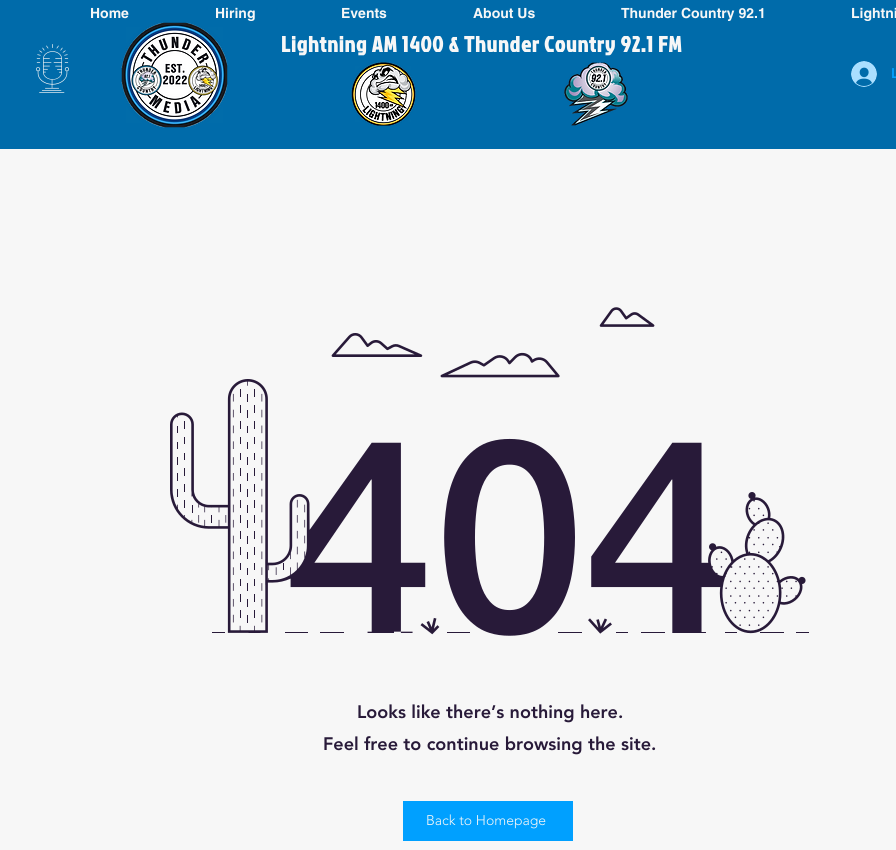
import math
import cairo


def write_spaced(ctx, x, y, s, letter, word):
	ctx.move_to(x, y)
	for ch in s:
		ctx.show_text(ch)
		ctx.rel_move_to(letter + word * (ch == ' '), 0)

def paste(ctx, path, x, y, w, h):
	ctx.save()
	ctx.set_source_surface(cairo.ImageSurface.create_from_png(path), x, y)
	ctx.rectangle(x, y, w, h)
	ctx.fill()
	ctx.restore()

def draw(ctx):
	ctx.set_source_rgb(0.965, 0.965, 0.965)
	ctx.paint()
	ctx.set_source_rgb(0, 0.42, 0.667)
	ctx.rectangle(0, 0, 896, 149)
	ctx.fill()
	ctx.select_font_face('helvetica', cairo.FONT_SLANT_NORMAL, cairo.FONT_WEIGHT_BOLD)
	ctx.set_font_size(14)
	ctx.set_source_rgb(0.965, 0.965, 0.965)
	for x, y, s in [
		(90, 18, 'Home'),
		(215, 18, 'Hiring'),
		(341, 18, 'Events'),
		(473, 18, 'About Us'),
		(621, 18, 'Thunder Country 92.1'),
		(851, 18, 'Lightni'),
	]:
		ctx.move_to(x, y)
		ctx.show_text(s)
	paste(ctx, 'media/1.png', 36, 44, 33, 49)
	paste(ctx, 'media/2.png', 121, 22, 107, 106)
	ctx.select_font_face('Jockey One', cairo.FONT_SLANT_NORMAL, cairo.FONT_WEIGHT_BOLD)
	ctx.set_font_size(22)
	write_spaced(ctx, 281, 52, 'Lightning AM 1400 & Thunder Country 92.1 FM', 0.9, 0)
	paste(ctx, 'media/3.png', 351, 62, 65, 64)
	paste(ctx, 'media/4.png', 564, 62, 64, 64)
	paste(ctx, 'media/5.png', 851, 61, 26, 26)
	ctx.select_font_face('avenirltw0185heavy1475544 Black')
	ctx.set_font_size(14)
	ctx.set_source_rgb(0, 0.627, 1)
	ctx.move_to(891, 78)
	ctx.show_text('L')
	paste(ctx, 'media/6.png', 170, 307, 639, 329)
	ctx.set_font_size(18)
	ctx.set_source_rgb(0.157, 0.102, 0.224)
	ctx.move_to(357, 718)
	ctx.show_text('Looks like there’s nothing here.')
	ctx.move_to(323, 750)
	ctx.show_text('Feel free to continue browsing the site.')
	ctx.set_source_rgb(0, 0.627, 1)
	ctx.rectangle(403, 801, 170, 40)
	ctx.fill()
	ctx.select_font_face('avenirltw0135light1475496 Light')
	ctx.set_font_size(14)
	ctx.set_source_rgb(0.965, 0.965, 0.965)
	ctx.move_to(426, 825)
	ctx.show_text('Back to Homepage')


surface = cairo.ImageSurface(cairo.FORMAT_RGB24, 896, 850)
ctx = cairo.Context(surface)
options = cairo.FontOptions()
options.set_hint_metrics(cairo.HINT_METRICS_OFF)
options.set_hint_style(cairo.HINT_STYLE_NONE)
ctx.set_font_options(options)
ctx.set_miter_limit(4)
draw(ctx)
surface.write_to_png('image.png')
